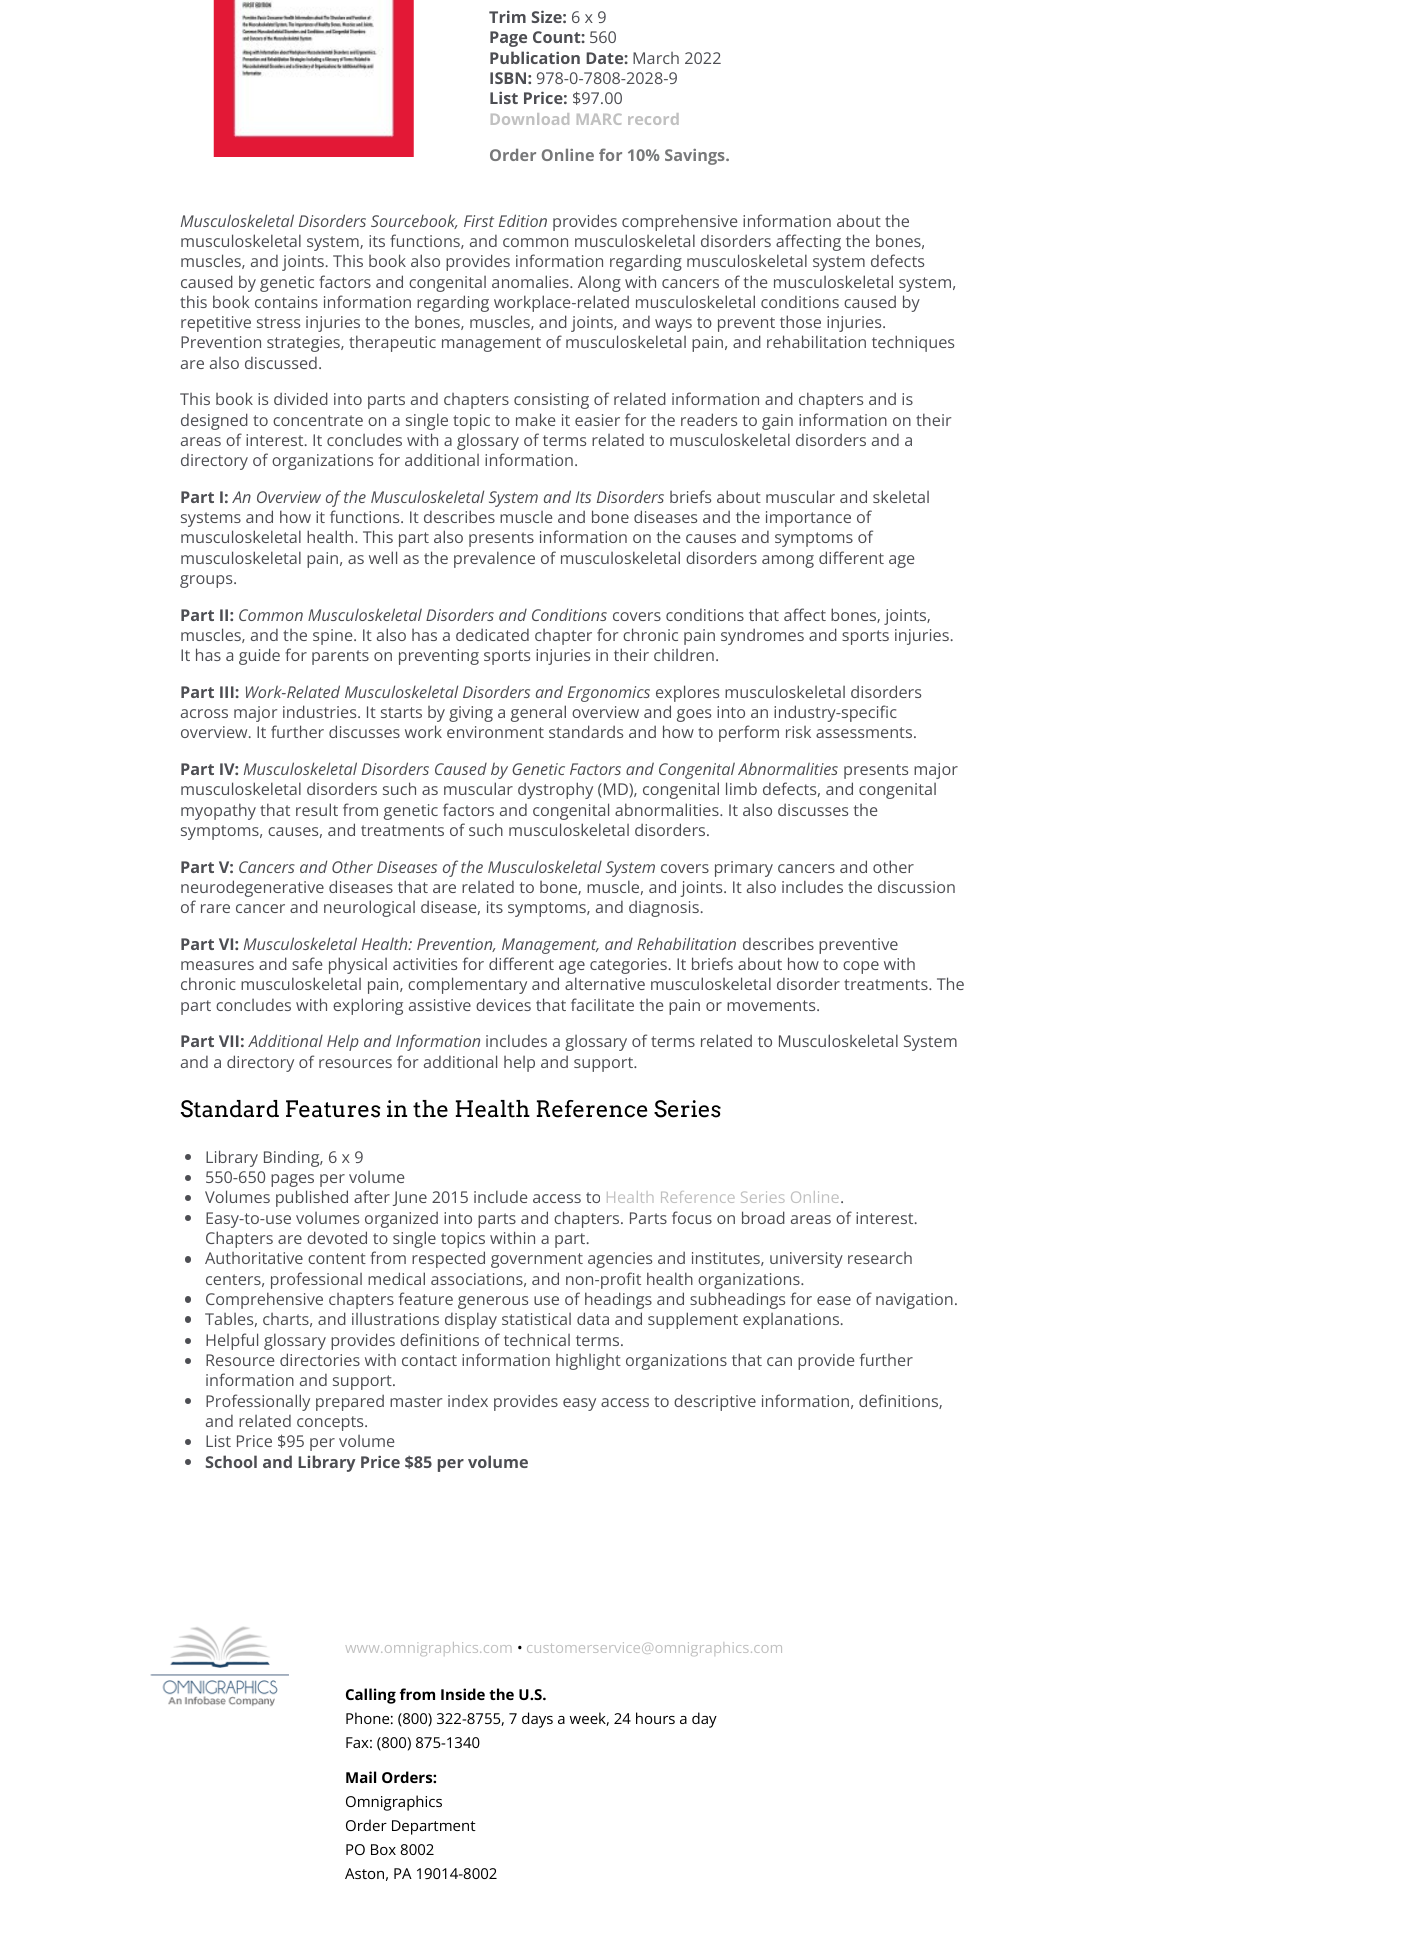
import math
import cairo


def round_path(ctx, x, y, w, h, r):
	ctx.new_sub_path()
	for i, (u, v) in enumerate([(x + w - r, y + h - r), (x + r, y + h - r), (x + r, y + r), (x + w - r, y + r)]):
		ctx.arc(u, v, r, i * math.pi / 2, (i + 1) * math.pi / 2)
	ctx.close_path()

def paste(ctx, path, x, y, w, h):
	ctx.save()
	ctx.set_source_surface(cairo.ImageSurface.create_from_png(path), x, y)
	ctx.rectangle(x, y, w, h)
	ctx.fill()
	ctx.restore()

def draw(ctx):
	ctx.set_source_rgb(1, 1, 1)
	ctx.paint()
	paste(ctx, 'media/1.png', 213, 0, 201, 157)
	ctx.select_font_face('Open Sans', cairo.FONT_SLANT_NORMAL, cairo.FONT_WEIGHT_BOLD)
	ctx.set_font_size(16.25)
	ctx.set_source_rgb(0.302, 0.306, 0.325)
	ctx.move_to(489, 23)
	ctx.show_text('Trim Size:')
	ctx.select_font_face('Open Sans')
	ctx.move_to(571, 23)
	ctx.show_text('6 x 9')
	ctx.select_font_face('Open Sans', cairo.FONT_SLANT_NORMAL, cairo.FONT_WEIGHT_BOLD)
	ctx.move_to(489, 43)
	ctx.show_text('Page Count:')
	ctx.select_font_face('Open Sans')
	ctx.move_to(589, 43)
	ctx.show_text('560')
	ctx.select_font_face('Open Sans', cairo.FONT_SLANT_NORMAL, cairo.FONT_WEIGHT_BOLD)
	ctx.move_to(489, 64)
	ctx.show_text('Publication Date:')
	ctx.select_font_face('Open Sans')
	ctx.move_to(632, 64)
	ctx.show_text('March 2022')
	ctx.select_font_face('Open Sans', cairo.FONT_SLANT_NORMAL, cairo.FONT_WEIGHT_BOLD)
	ctx.move_to(489, 84)
	ctx.show_text('ISBN:')
	ctx.select_font_face('Open Sans')
	ctx.move_to(536, 84)
	ctx.show_text('978-0-7808-2028-9')
	ctx.select_font_face('Open Sans', cairo.FONT_SLANT_NORMAL, cairo.FONT_WEIGHT_BOLD)
	ctx.move_to(489, 104)
	ctx.show_text('List Price:')
	ctx.select_font_face('Open Sans')
	ctx.move_to(572, 104)
	ctx.show_text('$97.00')
	ctx.select_font_face('Open Sans', cairo.FONT_SLANT_NORMAL, cairo.FONT_WEIGHT_BOLD)
	ctx.set_source_rgb(0.757, 0.757, 0.757)
	ctx.move_to(489, 125)
	ctx.show_text('Download MARC record')
	ctx.set_source_rgb(0.471, 0.475, 0.478)
	ctx.move_to(489, 161)
	ctx.show_text('Order Online for 10% Savings.')
	ctx.select_font_face('Open Sans', cairo.FONT_SLANT_ITALIC)
	ctx.set_source_rgb(0.302, 0.306, 0.325)
	ctx.move_to(180, 227)
	ctx.show_text('Musculoskeletal Disorders Sourcebook, First Edition')
	ctx.select_font_face('Open Sans')
	for x, y, s in [
		(552, 227, 'provides comprehensive information about the'),
		(180, 247, 'musculoskeletal system, its functions, and common musculoskeletal disorders affecting the bones,'),
		(180, 267, 'muscles, and joints. This book also provides information regarding musculoskeletal system defects'),
		(180, 288, 'caused by genetic factors and congenital anomalies. Along with cancers of the musculoskeletal system,'),
		(180, 308, 'this book contains information regarding workplace-related musculoskeletal conditions caused by'),
		(180, 328, 'repetitive stress injuries to the bones, muscles, and joints, and ways to prevent those injuries.'),
		(180, 348, 'Prevention strategies, therapeutic management of musculoskeletal pain, and rehabilitation techniques'),
		(180, 369, 'are also discussed.'),
		(180, 405, 'This book is divided into parts and chapters consisting of related information and chapters and is'),
		(180, 426, 'designed to concentrate on a single topic to make it easier for the readers to gain information on their'),
		(180, 446, 'areas of interest. It concludes with a glossary of terms related to musculoskeletal disorders and a'),
		(180, 466, 'directory of organizations for additional information.'),
	]:
		ctx.move_to(x, y)
		ctx.show_text(s)
	ctx.select_font_face('Open Sans', cairo.FONT_SLANT_NORMAL, cairo.FONT_WEIGHT_BOLD)
	ctx.move_to(180, 503)
	ctx.show_text('Part I:')
	ctx.select_font_face('Open Sans', cairo.FONT_SLANT_ITALIC)
	ctx.move_to(233, 503)
	ctx.show_text('An Overview of the Musculoskeletal System and Its Disorders')
	ctx.select_font_face('Open Sans')
	for x, y, s in [
		(669, 503, 'briefs about muscular and skeletal'),
		(180, 523, 'systems and how it functions. It describes muscle and bone diseases and the importance of'),
		(180, 543, 'musculoskeletal health. This part also presents information on the causes and symptoms of'),
		(180, 564, 'musculoskeletal pain, as well as the prevalence of musculoskeletal disorders among different age'),
		(180, 584, 'groups.'),
	]:
		ctx.move_to(x, y)
		ctx.show_text(s)
	ctx.select_font_face('Open Sans', cairo.FONT_SLANT_NORMAL, cairo.FONT_WEIGHT_BOLD)
	ctx.move_to(180, 621)
	ctx.show_text('Part II:')
	ctx.select_font_face('Open Sans', cairo.FONT_SLANT_ITALIC)
	ctx.move_to(238, 621)
	ctx.show_text('Common Musculoskeletal Disorders and Conditions')
	ctx.select_font_face('Open Sans')
	for x, y, s in [
		(612, 621, 'covers conditions that affect bones, joints,'),
		(180, 641, 'muscles, and the spine. It also has a dedicated chapter for chronic pain syndromes and sports injuries.'),
		(180, 661, 'It has a guide for parents on preventing sports injuries in their children.'),
	]:
		ctx.move_to(x, y)
		ctx.show_text(s)
	ctx.select_font_face('Open Sans', cairo.FONT_SLANT_NORMAL, cairo.FONT_WEIGHT_BOLD)
	ctx.move_to(180, 698)
	ctx.show_text('Part III:')
	ctx.select_font_face('Open Sans', cairo.FONT_SLANT_ITALIC)
	ctx.move_to(244, 698)
	ctx.show_text('Work-Related Musculoskeletal Disorders and Ergonomics')
	ctx.select_font_face('Open Sans')
	for x, y, s in [
		(655, 698, 'explores musculoskeletal disorders'),
		(180, 718, 'across major industries. It starts by giving a general overview and goes into an industry-specific'),
		(180, 738, 'overview. It further discusses work environment standards and how to perform risk assessments.'),
	]:
		ctx.move_to(x, y)
		ctx.show_text(s)
	ctx.select_font_face('Open Sans', cairo.FONT_SLANT_NORMAL, cairo.FONT_WEIGHT_BOLD)
	ctx.move_to(180, 775)
	ctx.show_text('Part IV:')
	ctx.select_font_face('Open Sans', cairo.FONT_SLANT_ITALIC)
	ctx.move_to(243, 775)
	ctx.show_text('Musculoskeletal Disorders Caused by Genetic Factors and Congenital Abnormalities')
	ctx.select_font_face('Open Sans')
	for x, y, s in [
		(843, 775, 'presents major'),
		(180, 795, 'musculoskeletal disorders such as muscular dystrophy (MD), congenital limb defects, and congenital'),
		(180, 816, 'myopathy that result from genetic factors and congenital abnormalities. It also discusses the'),
		(180, 836, 'symptoms, causes, and treatments of such musculoskeletal disorders.'),
	]:
		ctx.move_to(x, y)
		ctx.show_text(s)
	ctx.select_font_face('Open Sans', cairo.FONT_SLANT_NORMAL, cairo.FONT_WEIGHT_BOLD)
	ctx.move_to(180, 873)
	ctx.show_text('Part V:')
	ctx.select_font_face('Open Sans', cairo.FONT_SLANT_ITALIC)
	ctx.move_to(238, 873)
	ctx.show_text('Cancers and Other Diseases of the Musculoskeletal System')
	ctx.select_font_face('Open Sans')
	for x, y, s in [
		(660, 873, 'covers primary cancers and other'),
		(180, 893, 'neurodegenerative diseases that are related to bone, muscle, and joints. It also includes the discussion'),
		(180, 913, 'of rare cancer and neurological disease, its symptoms, and diagnosis.'),
	]:
		ctx.move_to(x, y)
		ctx.show_text(s)
	ctx.select_font_face('Open Sans', cairo.FONT_SLANT_NORMAL, cairo.FONT_WEIGHT_BOLD)
	ctx.move_to(180, 950)
	ctx.show_text('Part VI:')
	ctx.select_font_face('Open Sans', cairo.FONT_SLANT_ITALIC)
	ctx.move_to(243, 950)
	ctx.show_text('Musculoskeletal Health: Prevention, Management, and Rehabilitation')
	ctx.select_font_face('Open Sans')
	for x, y, s in [
		(742, 950, 'describes preventive'),
		(180, 970, 'measures and safe physical activities for different age categories. It briefs about how to cope with'),
		(180, 990, 'chronic musculoskeletal pain, complementary and alternative musculoskeletal disorder treatments. The'),
		(180, 1011, 'part concludes with exploring assistive devices that facilitate the pain or movements.'),
	]:
		ctx.move_to(x, y)
		ctx.show_text(s)
	ctx.select_font_face('Open Sans', cairo.FONT_SLANT_NORMAL, cairo.FONT_WEIGHT_BOLD)
	ctx.move_to(180, 1047)
	ctx.show_text('Part VII:')
	ctx.select_font_face('Open Sans', cairo.FONT_SLANT_ITALIC)
	ctx.move_to(249, 1047)
	ctx.show_text('Additional Help and Information')
	ctx.select_font_face('Open Sans')
	ctx.move_to(485, 1047)
	ctx.show_text('includes a glossary of terms related to Musculoskeletal System')
	ctx.move_to(180, 1068)
	ctx.show_text('and a directory of resources for additional help and support.')
	ctx.select_font_face('Arvo')
	ctx.set_font_size(22.5)
	ctx.set_source_rgb(0, 0, 0)
	ctx.move_to(180, 1117)
	ctx.show_text('Standard Features in the Health Reference Series')
	ctx.set_source_rgb(0.302, 0.306, 0.325)
	ctx.new_path()
	ctx.arc(188, 1157, 3, 0, 2 * math.pi)
	ctx.fill()
	ctx.select_font_face('Open Sans')
	ctx.set_font_size(16.25)
	ctx.move_to(205, 1163)
	ctx.show_text('Library Binding, 6 x 9')
	ctx.new_path()
	ctx.arc(188, 1178, 3, 0, 2 * math.pi)
	ctx.fill()
	ctx.move_to(205, 1183)
	ctx.show_text('550-650 pages per volume')
	ctx.new_path()
	ctx.arc(188, 1198, 3, 0, 2 * math.pi)
	ctx.fill()
	ctx.move_to(205, 1203)
	ctx.show_text('Volumes published after June 2015 include access to')
	ctx.set_source_rgb(0.757, 0.757, 0.757)
	ctx.move_to(605, 1203)
	ctx.show_text('Health Reference Series Online')
	ctx.set_source_rgb(0.302, 0.306, 0.325)
	ctx.move_to(840, 1203)
	ctx.show_text('.')
	ctx.new_path()
	ctx.arc(188, 1218, 3, 0, 2 * math.pi)
	ctx.fill()
	ctx.move_to(205, 1224)
	ctx.show_text('Easy-to-use volumes organized into parts and chapters. Parts focus on broad areas of interest.')
	ctx.move_to(205, 1244)
	ctx.show_text('Chapters are devoted to single topics within a part.')
	round_path(ctx, 185, 1256, 6, 7, 3)
	ctx.fill()
	ctx.move_to(205, 1264)
	ctx.show_text('Authoritative content from respected government agencies and institutes, university research')
	ctx.move_to(205, 1285)
	ctx.show_text('centers, professional medical associations, and non-profit health organizations.')
	round_path(ctx, 185, 1296, 6, 7, 3)
	ctx.fill()
	ctx.move_to(205, 1305)
	ctx.show_text('Comprehensive chapters feature generous use of headings and subheadings for ease of navigation.')
	round_path(ctx, 185, 1316, 6, 7, 3)
	ctx.fill()
	ctx.move_to(205, 1325)
	ctx.show_text('Tables, charts, and illustrations display statistical data and supplement explanations.')
	ctx.new_path()
	ctx.arc(188, 1341, 3, 0, 2 * math.pi)
	ctx.fill()
	ctx.move_to(205, 1346)
	ctx.show_text('Helpful glossary provides definitions of technical terms.')
	ctx.new_path()
	ctx.arc(188, 1361, 3, 0, 2 * math.pi)
	ctx.fill()
	ctx.move_to(205, 1366)
	ctx.show_text('Resource directories with contact information highlight organizations that can provide further')
	ctx.move_to(205, 1386)
	ctx.show_text('information and support.')
	ctx.new_path()
	ctx.arc(188, 1401, 3, 0, 2 * math.pi)
	ctx.fill()
	ctx.move_to(205, 1407)
	ctx.show_text('Professionally prepared master index provides easy access to descriptive information, definitions,')
	ctx.move_to(205, 1427)
	ctx.show_text('and related concepts.')
	ctx.new_path()
	ctx.arc(188, 1442, 3, 0, 2 * math.pi)
	ctx.fill()
	ctx.move_to(205, 1447)
	ctx.show_text('List Price $95 per volume')
	ctx.new_path()
	ctx.arc(188, 1462, 3, 0, 2 * math.pi)
	ctx.fill()
	ctx.select_font_face('Open Sans', cairo.FONT_SLANT_NORMAL, cairo.FONT_WEIGHT_BOLD)
	ctx.move_to(205, 1468)
	ctx.show_text('School and Library Price $85 per volume')
	paste(ctx, 'media/2.png', 150, 1626, 139, 81)
	ctx.select_font_face('Open Sans')
	ctx.set_font_size(15)
	ctx.set_source_rgb(0.757, 0.757, 0.757)
	ctx.move_to(345, 1653)
	ctx.show_text('www.omnigraphics.com')
	ctx.set_source_rgb(0, 0, 0)
	ctx.move_to(517, 1653)
	ctx.show_text('•')
	ctx.set_source_rgb(0.757, 0.757, 0.757)
	ctx.move_to(526, 1653)
	ctx.show_text('customerservice@omnigraphics.com')
	ctx.select_font_face('Open Sans', cairo.FONT_SLANT_NORMAL, cairo.FONT_WEIGHT_BOLD)
	ctx.set_source_rgb(0, 0, 0)
	ctx.move_to(345, 1700)
	ctx.show_text('Calling from Inside the U.S.')
	ctx.select_font_face('Open Sans')
	ctx.move_to(345, 1724)
	ctx.show_text('Phone: (800) 322-8755, 7 days a week, 24 hours a day')
	ctx.move_to(345, 1748)
	ctx.show_text('Fax: (800) 875-1340')
	ctx.select_font_face('Open Sans', cairo.FONT_SLANT_NORMAL, cairo.FONT_WEIGHT_BOLD)
	ctx.move_to(345, 1783)
	ctx.show_text('Mail Orders:')
	ctx.select_font_face('Open Sans')
	for x, y, s in [
		(345, 1807, 'Omnigraphics'),
		(345, 1831, 'Order Department'),
		(345, 1855, 'PO Box 8002'),
		(345, 1879, 'Aston, PA 19014-8002'),
	]:
		ctx.move_to(x, y)
		ctx.show_text(s)


surface = cairo.ImageSurface(cairo.FORMAT_RGB24, 1407, 1957)
ctx = cairo.Context(surface)
options = cairo.FontOptions()
options.set_hint_metrics(cairo.HINT_METRICS_OFF)
options.set_hint_style(cairo.HINT_STYLE_NONE)
ctx.set_font_options(options)
ctx.set_miter_limit(4)
draw(ctx)
surface.write_to_png('image.png')
